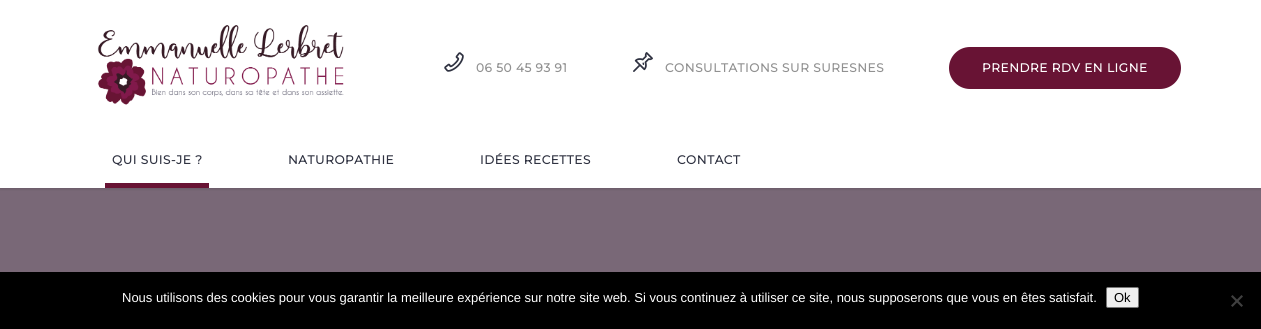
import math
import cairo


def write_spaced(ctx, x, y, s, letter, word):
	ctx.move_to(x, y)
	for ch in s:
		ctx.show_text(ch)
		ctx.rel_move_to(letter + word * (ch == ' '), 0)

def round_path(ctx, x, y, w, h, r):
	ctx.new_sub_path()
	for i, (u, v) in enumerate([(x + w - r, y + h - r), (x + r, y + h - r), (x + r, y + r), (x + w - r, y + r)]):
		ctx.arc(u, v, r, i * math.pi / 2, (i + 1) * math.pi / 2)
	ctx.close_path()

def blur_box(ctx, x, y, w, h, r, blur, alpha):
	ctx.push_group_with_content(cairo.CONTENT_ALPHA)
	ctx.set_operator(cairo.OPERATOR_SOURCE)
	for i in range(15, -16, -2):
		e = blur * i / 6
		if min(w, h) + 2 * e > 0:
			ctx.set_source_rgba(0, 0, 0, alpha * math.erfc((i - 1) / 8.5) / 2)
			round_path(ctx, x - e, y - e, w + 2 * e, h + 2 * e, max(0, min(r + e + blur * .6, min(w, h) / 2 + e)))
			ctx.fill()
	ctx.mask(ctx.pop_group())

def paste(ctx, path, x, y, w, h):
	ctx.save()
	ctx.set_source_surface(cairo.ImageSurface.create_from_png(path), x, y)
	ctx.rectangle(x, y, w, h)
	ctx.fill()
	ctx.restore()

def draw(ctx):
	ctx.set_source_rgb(1, 1, 1)
	ctx.paint()
	ctx.set_source_rgb(0.475, 0.408, 0.467)
	ctx.rectangle(0, 188, 1261, 84)
	ctx.fill()
	ctx.save()
	ctx.rectangle(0, 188, 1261, 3)
	ctx.clip()
	ctx.set_source_rgb(0, 0, 0)
	blur_box(ctx, 0, 131, 1261, 58, 0, 1.5, 0.15)
	ctx.restore()
	ctx.set_source_rgb(1, 1, 1)
	ctx.rectangle(0, 129, 1261, 1)
	ctx.fill()
	paste(ctx, 'media/1.png', 97, 25, 247, 80)
	paste(ctx, 'media/2.png', 444, 52, 20, 20)
	ctx.select_font_face('Montserrat', cairo.FONT_SLANT_NORMAL, cairo.FONT_WEIGHT_BOLD)
	ctx.set_font_size(12)
	ctx.set_source_rgb(0.569, 0.569, 0.569)
	write_spaced(ctx, 476, 72, '06 50 45 93 91', 0.6, 0)
	paste(ctx, 'media/3.png', 633, 52, 20, 20)
	write_spaced(ctx, 665, 72, 'CONSULTATIONS SUR SURESNES', 0.6, 0)
	ctx.set_source_rgb(0.408, 0.078, 0.204)
	round_path(ctx, 949, 47, 232, 42, 21)
	ctx.fill()
	ctx.set_source_rgb(1, 1, 1)
	write_spaced(ctx, 982, 72, 'PRENDRE RDV EN LIGNE', 0.6, 0)
	ctx.set_source_rgb(0.184, 0.196, 0.255)
	for x, y, s in [
		(112, 164, 'QUI SUIS-JE ?'),
		(288, 164, 'NATUROPATHIE'),
		(480, 164, 'IDÉES RECETTES'),
		(677, 164, 'CONTACT'),
	]:
		write_spaced(ctx, x, y, s, 0.6, 0)
	ctx.set_source_rgb(0.408, 0.078, 0.204)
	ctx.rectangle(105, 183, 104, 5)
	ctx.fill()
	ctx.set_source_rgb(0, 0, 0)
	ctx.rectangle(0, 272, 1261, 57)
	ctx.fill()
	ctx.select_font_face('Liberation Sans')
	ctx.set_font_size(13)
	ctx.set_source_rgb(1, 1, 1)
	ctx.move_to(122, 302)
	ctx.show_text('Nous utilisons des cookies pour vous garantir la meilleure expérience sur notre site web. Si vous continuez à utiliser ce site, nous supposerons que vous en êtes satisfait.')
	ctx.set_source_rgb(0.937, 0.937, 0.937)
	round_path(ctx, 1106.5, 287.5, 32, 20, 1.5)
	ctx.fill_preserve()
	ctx.set_source_rgb(0.463, 0.463, 0.463)
	ctx.set_line_width(1)
	ctx.stroke()
	ctx.set_source_rgb(0, 0, 0)
	ctx.move_to(1114, 302)
	ctx.show_text('Ok')
	ctx.set_source_rgb(0.251, 0.251, 0.251)
	ctx.new_path()
	ctx.move_to(1241.5, 295)
	ctx.line_to(1243, 296.5)
	ctx.line_to(1232.5, 307)
	ctx.line_to(1231, 305.5)
	ctx.close_path()
	ctx.fill()
	ctx.new_path()
	ctx.move_to(1231, 296.5)
	ctx.line_to(1232.5, 295)
	ctx.line_to(1243, 305.5)
	ctx.line_to(1241.5, 307)
	ctx.close_path()
	ctx.fill()


surface = cairo.ImageSurface(cairo.FORMAT_RGB24, 1261, 329)
ctx = cairo.Context(surface)
options = cairo.FontOptions()
options.set_hint_metrics(cairo.HINT_METRICS_OFF)
options.set_hint_style(cairo.HINT_STYLE_NONE)
ctx.set_font_options(options)
ctx.set_miter_limit(4)
draw(ctx)
surface.write_to_png('image.png')
